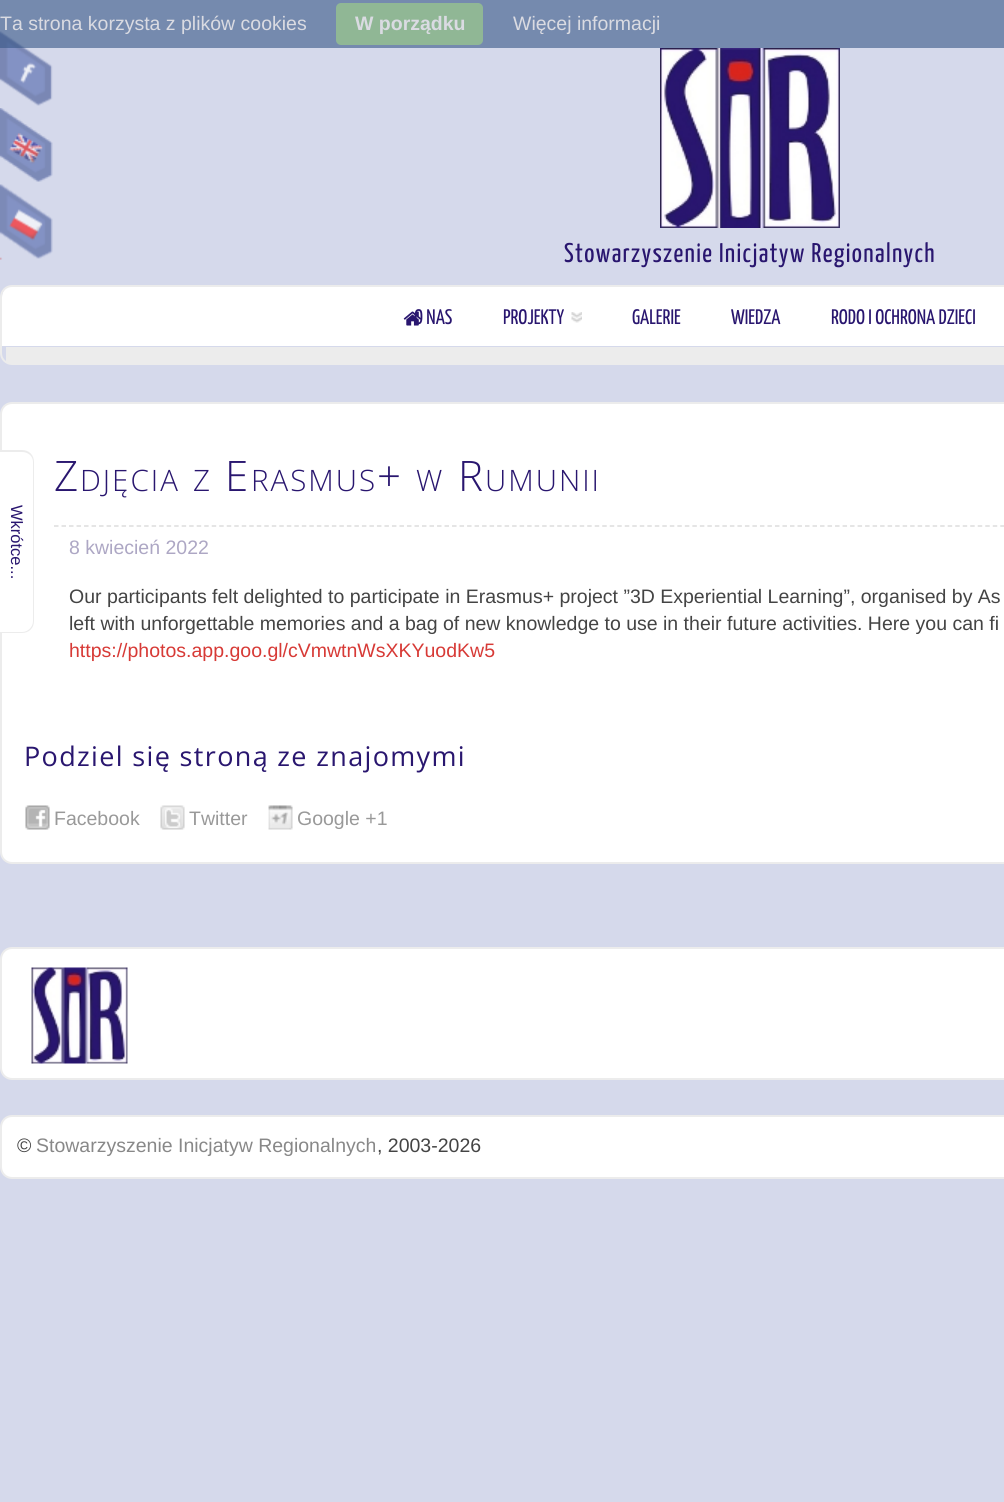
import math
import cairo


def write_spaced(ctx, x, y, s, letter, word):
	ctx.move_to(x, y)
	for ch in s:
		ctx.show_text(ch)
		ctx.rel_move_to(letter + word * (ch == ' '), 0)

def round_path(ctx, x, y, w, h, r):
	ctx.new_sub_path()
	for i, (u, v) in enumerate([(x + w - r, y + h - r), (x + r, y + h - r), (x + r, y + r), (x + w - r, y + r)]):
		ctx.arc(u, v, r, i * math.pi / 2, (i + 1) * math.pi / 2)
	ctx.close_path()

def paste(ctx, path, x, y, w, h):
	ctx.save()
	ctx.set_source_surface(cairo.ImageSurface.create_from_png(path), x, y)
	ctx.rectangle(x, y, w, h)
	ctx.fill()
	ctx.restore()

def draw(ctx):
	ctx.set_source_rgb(0.835, 0.851, 0.918)
	ctx.paint()
	paste(ctx, 'media/1.png', 0, 31, 53, 75)
	ctx.set_source_rgba(0.212, 0.337, 0.525, 0.6)
	ctx.rectangle(0, 0, 1004, 48)
	ctx.fill()
	ctx.select_font_face('Liberation Sans')
	ctx.set_font_size(19.5)
	ctx.set_source_rgb(0.855, 0.859, 0.886)
	ctx.move_to(0, 30)
	ctx.show_text('Ta strona korzysta z plików cookies')
	ctx.set_source_rgb(0.565, 0.718, 0.584)
	round_path(ctx, 336, 3, 147, 42, 5)
	ctx.fill()
	ctx.select_font_face('Liberation Sans', cairo.FONT_SLANT_NORMAL, cairo.FONT_WEIGHT_BOLD)
	ctx.set_source_rgb(0.855, 0.859, 0.886)
	ctx.move_to(355, 30)
	ctx.show_text('W porządku')
	ctx.select_font_face('Liberation Sans')
	ctx.move_to(513, 30)
	ctx.show_text('Więcej informacji')
	paste(ctx, 'media/2.png', 0, 108, 53, 74)
	paste(ctx, 'media/3.png', 0, 184, 53, 76)
	paste(ctx, 'media/4.png', 660, 48, 180, 180)
	ctx.select_font_face('Yanone Kaffeesatz ExtraLight')
	ctx.set_font_size(27)
	ctx.set_source_rgb(0.161, 0.086, 0.435)
	write_spaced(ctx, 564, 262, 'Stowarzyszenie Inicjatyw Regionalnych', 1.35, 0)
	ctx.set_source_rgb(1, 1, 1)
	ctx.new_path()
	ctx.move_to(12, 286)
	ctx.line_to(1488, 286)
	ctx.curve_to(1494, 286, 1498, 291, 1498, 297)
	ctx.line_to(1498, 346)
	ctx.line_to(2, 346)
	ctx.line_to(2, 297)
	ctx.curve_to(2, 291, 6, 286, 12, 286)
	ctx.close_path()
	ctx.fill()
	round_path(ctx, 1, 286, 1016, 78, 11)
	ctx.set_source_rgb(0.925, 0.925, 0.925)
	ctx.stroke()
	ctx.rectangle(6, 347, 998, 16)
	ctx.fill()
	paste(ctx, 'media/5.png', 403, 311, 19, 15)
	ctx.set_font_size(21)
	ctx.set_source_rgb(0.161, 0.086, 0.435)
	ctx.move_to(414, 324)
	ctx.show_text('O NAS')
	ctx.move_to(503, 324)
	ctx.show_text('PROJEKTY')
	paste(ctx, 'media/6.png', 571, 312, 11, 11)
	for x, y, s in [
		(632, 324, 'GALERIE'),
		(731, 324, 'WIEDZA'),
		(831, 324, 'RODO I OCHRONA DZIECI'),
	]:
		ctx.move_to(x, y)
		ctx.show_text(s)
	ctx.set_source_rgb(1, 1, 1)
	round_path(ctx, 1, 403, 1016, 460, 11)
	ctx.fill_preserve()
	ctx.set_source_rgb(0.925, 0.925, 0.925)
	ctx.stroke()
	ctx.new_path()
	ctx.move_to(54, 526)
	ctx.line_to(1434, 526)
	ctx.set_source_rgb(0.867, 0.867, 0.867)
	ctx.set_line_width(1.5)
	ctx.set_dash([4.5, 3.01])
	ctx.stroke()
	ctx.select_font_face('Open Sans Light')
	ctx.set_font_size(42)
	ctx.set_source_rgb(0.161, 0.086, 0.435)
	write_spaced(ctx, 54, 491, 'Z', 2, 0)
	ctx.set_font_size(29.5)
	write_spaced(ctx, 80, 491, 'DJĘCIA', 2, 0)
	write_spaced(ctx, 193, 491, 'Z', 2, 0)
	ctx.set_font_size(42)
	write_spaced(ctx, 225, 491, 'E', 2, 0)
	ctx.set_font_size(29.5)
	write_spaced(ctx, 251, 491, 'RASMUS', 2, 0)
	ctx.set_font_size(42)
	write_spaced(ctx, 377, 491, '+', 2, 0)
	ctx.set_font_size(29.5)
	write_spaced(ctx, 416, 491, 'W', 2, 0)
	ctx.set_font_size(42)
	write_spaced(ctx, 458, 491, 'R', 2, 0)
	ctx.set_font_size(29.5)
	write_spaced(ctx, 485, 491, 'UMUNII', 2, 0)
	ctx.select_font_face('Liberation Sans')
	ctx.set_font_size(19.5)
	ctx.set_source_rgb(0.678, 0.655, 0.769)
	ctx.move_to(69, 554)
	ctx.show_text('8 kwiecień 2022')
	ctx.set_source_rgb(0.267, 0.267, 0.267)
	ctx.move_to(69, 603)
	ctx.show_text('Our participants felt delighted to participate in Erasmus+ project ”3D Experiential Learning”, organised by As')
	ctx.move_to(69, 630)
	ctx.show_text('left with unforgettable memories and a bag of new knowledge to use in their future activities. Here you can fi')
	ctx.set_source_rgb(0.843, 0.227, 0.212)
	ctx.move_to(69, 657)
	ctx.show_text('https://photos.app.goo.gl/cVmwtnWsXKYuodKw5')
	ctx.select_font_face('Open Sans')
	ctx.set_font_size(27)
	ctx.set_source_rgb(0.161, 0.086, 0.435)
	write_spaced(ctx, 24, 766, 'Podziel się stroną ze znajomymi', 1.35, 0)
	paste(ctx, 'media/7.png', 25, 805, 25, 25)
	ctx.select_font_face('Liberation Sans')
	ctx.set_font_size(19.5)
	ctx.set_source_rgb(0.6, 0.6, 0.6)
	ctx.move_to(54, 825)
	ctx.show_text('Facebook')
	paste(ctx, 'media/8.png', 160, 805, 25, 25)
	ctx.move_to(189, 825)
	ctx.show_text('Twitter')
	paste(ctx, 'media/9.png', 268, 805, 25, 25)
	ctx.move_to(297, 825)
	ctx.show_text('Google +1')
	ctx.set_source_rgb(1, 1, 1)
	round_path(ctx, 1, 948, 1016, 131, 11)
	ctx.fill_preserve()
	ctx.set_source_rgb(0.925, 0.925, 0.925)
	ctx.set_line_width(2)
	ctx.set_dash([])
	ctx.stroke()
	paste(ctx, 'media/10.png', 31, 967, 97, 97)
	ctx.set_source_rgb(1, 1, 1)
	round_path(ctx, 1, 1116, 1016, 62, 11)
	ctx.fill_preserve()
	ctx.set_source_rgb(0.925, 0.925, 0.925)
	ctx.stroke()
	ctx.set_source_rgb(0.267, 0.267, 0.267)
	ctx.move_to(17, 1152)
	ctx.show_text('©')
	ctx.set_source_rgb(0.533, 0.533, 0.533)
	ctx.move_to(36, 1152)
	ctx.show_text('Stowarzyszenie Inicjatyw Regionalnych')
	ctx.set_source_rgb(0.267, 0.267, 0.267)
	ctx.move_to(377, 1152)
	ctx.show_text(', 2003-2026')
	ctx.set_source_rgb(1, 1, 1)
	ctx.new_path()
	ctx.move_to(-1, 450)
	ctx.line_to(23, 450)
	ctx.curve_to(29.5, 450, 35, 455.5, 35, 462)
	ctx.line_to(35, 621)
	ctx.curve_to(35, 627.5, 29.5, 633, 23, 633)
	ctx.line_to(-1, 633)
	ctx.close_path()
	ctx.fill()
	ctx.set_source_rgb(0.925, 0.925, 0.925)
	ctx.set_fill_rule(cairo.FILL_RULE_EVEN_ODD)
	ctx.new_path()
	ctx.move_to(-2, 450)
	ctx.line_to(22, 450)
	ctx.curve_to(29, 450, 34, 455, 34, 462)
	ctx.line_to(34, 621)
	ctx.curve_to(34, 628, 29, 633, 22, 633)
	ctx.line_to(-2, 633)
	ctx.close_path()
	ctx.move_to(-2, 452)
	ctx.line_to(22, 452)
	ctx.curve_to(28, 452, 33, 456, 33, 462)
	ctx.line_to(33, 621)
	ctx.curve_to(33, 627, 28, 632, 22, 632)
	ctx.line_to(-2, 632)
	ctx.close_path()
	ctx.fill()
	ctx.set_font_size(16.5)
	ctx.set_source_rgb(0.161, 0.086, 0.435)
	ctx.save()
	ctx.translate(11, 505)
	ctx.rotate(90 * math.pi / 180)
	ctx.move_to(0, 0)
	ctx.show_text('Wkrótce...')
	ctx.restore()


surface = cairo.ImageSurface(cairo.FORMAT_RGB24, 1004, 1502)
ctx = cairo.Context(surface)
options = cairo.FontOptions()
options.set_hint_metrics(cairo.HINT_METRICS_OFF)
options.set_hint_style(cairo.HINT_STYLE_NONE)
ctx.set_font_options(options)
ctx.set_miter_limit(4)
draw(ctx)
surface.write_to_png('image.png')
